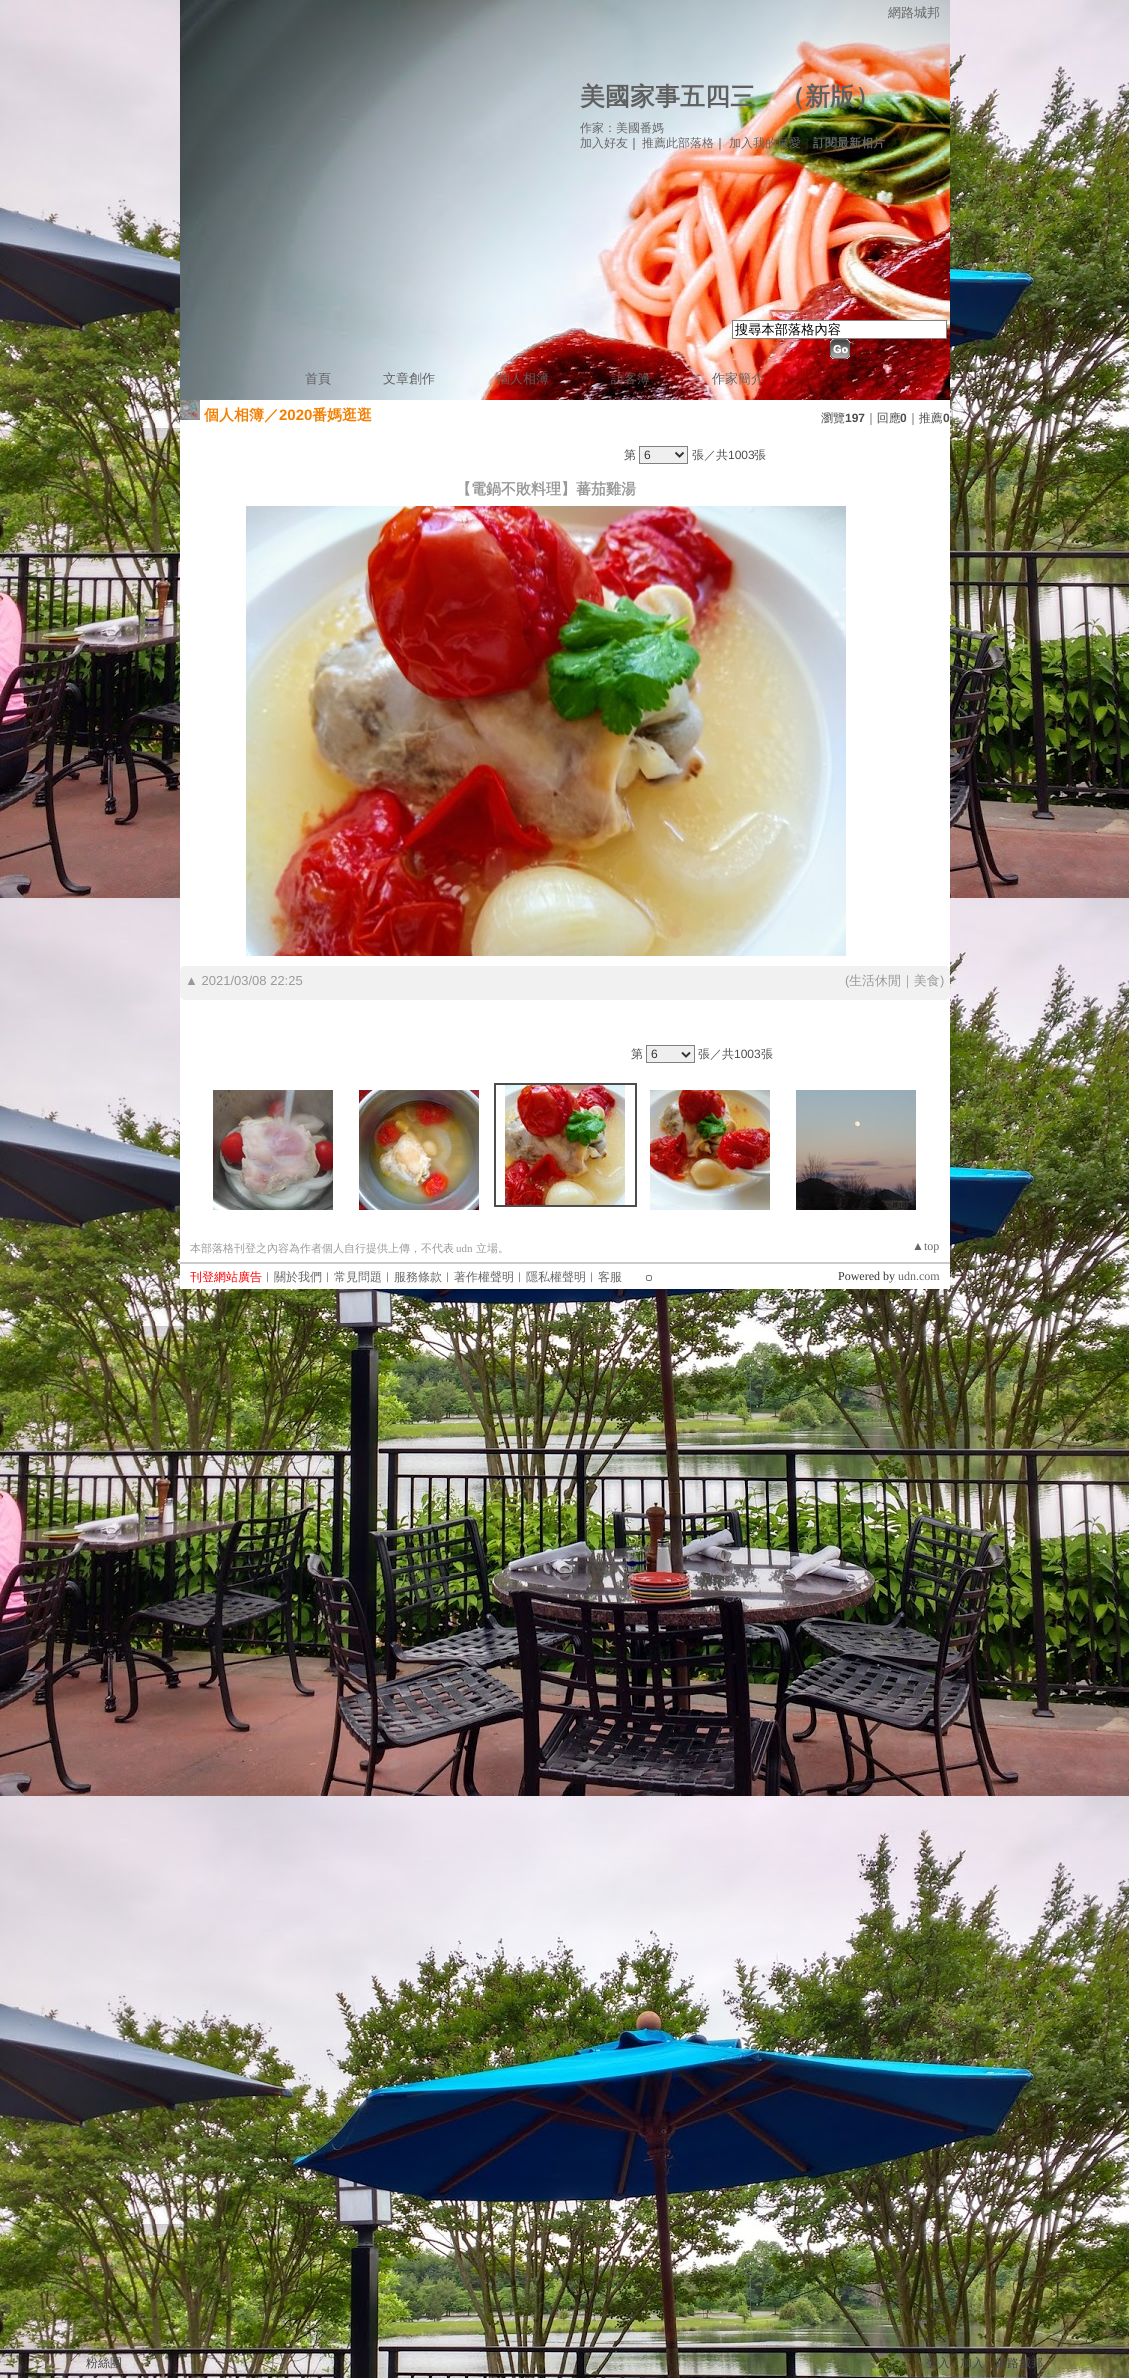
import math
import cairo


def round_path(ctx, x, y, w, h, r):
	ctx.new_sub_path()
	for i, (u, v) in enumerate([(x + w - r, y + h - r), (x + r, y + h - r), (x + r, y + r), (x + w - r, y + r)]):
		ctx.arc(u, v, r, i * math.pi / 2, (i + 1) * math.pi / 2)
	ctx.close_path()

def paste(ctx, path, x, y, w, h):
	ctx.save()
	ctx.set_source_surface(cairo.ImageSurface.create_from_png(path), x, y)
	ctx.rectangle(x, y, w, h)
	ctx.fill()
	ctx.restore()

def draw(ctx):
	ctx.set_source_rgb(1, 1, 1)
	ctx.paint()
	paste(ctx, 'media/1.png', 0, 0, 1129, 2378)
	ctx.set_source_rgb(1, 1, 1)
	ctx.rectangle(180, 400, 770, 889)
	ctx.fill()
	paste(ctx, 'media/2.png', 180, 0, 770, 400)
	ctx.select_font_face('WenQuanYi Zen Hei Medium')
	ctx.set_font_size(13)
	ctx.set_source_rgb(0.4, 0.4, 0.4)
	ctx.move_to(888, 17)
	ctx.show_text('網路城邦')
	ctx.select_font_face('WenQuanYi Zen Hei', cairo.FONT_SLANT_NORMAL, cairo.FONT_WEIGHT_BOLD)
	ctx.set_font_size(25)
	ctx.set_source_rgb(0.376, 0.376, 0.376)
	ctx.move_to(580, 105)
	ctx.show_text('美國家事五四三')
	ctx.move_to(780, 105)
	ctx.show_text('（新版）')
	ctx.select_font_face('WenQuanYi Zen Hei Medium')
	ctx.set_font_size(12)
	ctx.set_source_rgb(0.4, 0.4, 0.4)
	ctx.move_to(580, 132)
	ctx.show_text('作家：美國番媽')
	ctx.move_to(580, 147)
	ctx.show_text('加入好友')
	ctx.set_source_rgb(0.2, 0.2, 0.2)
	ctx.move_to(628, 147)
	ctx.show_text('｜')
	ctx.set_source_rgb(0.4, 0.4, 0.4)
	ctx.move_to(642, 147)
	ctx.show_text('推薦此部落格')
	ctx.set_source_rgb(0.2, 0.2, 0.2)
	ctx.move_to(714, 147)
	ctx.show_text('｜')
	ctx.set_source_rgb(0.4, 0.4, 0.4)
	ctx.move_to(729, 147)
	ctx.show_text('加入我的最愛')
	ctx.set_source_rgb(0.2, 0.2, 0.2)
	ctx.move_to(801, 147)
	ctx.show_text('｜')
	ctx.select_font_face('WenQuanYi Zen Hei', cairo.FONT_SLANT_NORMAL, cairo.FONT_WEIGHT_BOLD)
	ctx.set_source_rgb(0.4, 0.4, 0.4)
	ctx.move_to(813, 147)
	ctx.show_text('訂閱最新相片')
	ctx.set_source_rgb(1, 1, 1)
	ctx.rectangle(732.5, 320.5, 214, 18)
	ctx.fill_preserve()
	ctx.set_source_rgb(0.502, 0.502, 0.502)
	ctx.set_line_width(1)
	ctx.stroke()
	ctx.select_font_face('WenQuanYi Zen Hei Medium')
	ctx.set_font_size(13.25)
	ctx.set_source_rgb(0, 0, 0)
	ctx.move_to(735, 334)
	ctx.show_text('搜尋本部落格內容')
	paste(ctx, 'media/3.png', 830, 339, 20, 20)
	ctx.set_font_size(13)
	ctx.set_source_rgb(0.376, 0.376, 0.376)
	for x, y, s in [
		(305, 383, '首頁'),
		(383, 383, '文章創作'),
		(497, 383, '個人相簿'),
		(611, 383, '訪客簿'),
		(712, 383, '作家簡介'),
	]:
		ctx.move_to(x, y)
		ctx.show_text(s)
	paste(ctx, 'media/4.png', 180, 400, 20, 20)
	ctx.select_font_face('WenQuanYi Zen Hei', cairo.FONT_SLANT_NORMAL, cairo.FONT_WEIGHT_BOLD)
	ctx.set_font_size(15)
	ctx.set_source_rgb(0.957, 0.494, 0)
	ctx.move_to(204, 420)
	ctx.show_text('個人相簿／')
	ctx.select_font_face('Liberation Sans', cairo.FONT_SLANT_NORMAL, cairo.FONT_WEIGHT_BOLD)
	ctx.move_to(279, 420)
	ctx.show_text('2020')
	ctx.select_font_face('WenQuanYi Zen Hei', cairo.FONT_SLANT_NORMAL, cairo.FONT_WEIGHT_BOLD)
	ctx.move_to(312, 420)
	ctx.show_text('番媽逛逛')
	ctx.select_font_face('WenQuanYi Zen Hei Medium')
	ctx.set_font_size(12)
	ctx.set_source_rgb(0.302, 0.302, 0.302)
	ctx.move_to(821, 422)
	ctx.show_text('瀏覽')
	ctx.select_font_face('Liberation Sans', cairo.FONT_SLANT_NORMAL, cairo.FONT_WEIGHT_BOLD)
	ctx.move_to(845, 422)
	ctx.show_text('197')
	ctx.select_font_face('WenQuanYi Zen Hei Medium')
	ctx.move_to(865, 422)
	ctx.show_text('｜回應')
	ctx.select_font_face('Liberation Sans', cairo.FONT_SLANT_NORMAL, cairo.FONT_WEIGHT_BOLD)
	ctx.move_to(900, 422)
	ctx.show_text('0')
	ctx.select_font_face('WenQuanYi Zen Hei Medium')
	ctx.move_to(907, 422)
	ctx.show_text('｜推薦')
	ctx.select_font_face('Liberation Sans', cairo.FONT_SLANT_NORMAL, cairo.FONT_WEIGHT_BOLD)
	ctx.move_to(943, 422)
	ctx.show_text('0')
	ctx.select_font_face('WenQuanYi Zen Hei Medium')
	ctx.move_to(624, 459)
	ctx.show_text('第')
	ctx.set_source_rgb(0.937, 0.937, 0.937)
	ctx.rectangle(639.5, 446.5, 48, 17)
	ctx.fill_preserve()
	ctx.set_source_rgb(0.502, 0.502, 0.502)
	ctx.stroke()
	ctx.new_path()
	ctx.move_to(675.5, 452.5)
	ctx.line_to(679.5, 456.5)
	ctx.line_to(683.5, 452.5)
	ctx.set_source_rgb(0.2, 0.2, 0.2)
	ctx.set_line_width(2)
	ctx.stroke()
	ctx.select_font_face('Liberation Sans')
	ctx.move_to(644, 459)
	ctx.show_text('6')
	ctx.select_font_face('WenQuanYi Zen Hei Medium')
	ctx.set_source_rgb(0.302, 0.302, 0.302)
	ctx.move_to(692, 459)
	ctx.show_text('張／共')
	ctx.select_font_face('Liberation Sans')
	ctx.move_to(728, 459)
	ctx.show_text('1003')
	ctx.select_font_face('WenQuanYi Zen Hei Medium')
	ctx.move_to(754, 459)
	ctx.show_text('張')
	ctx.select_font_face('WenQuanYi Zen Hei', cairo.FONT_SLANT_NORMAL, cairo.FONT_WEIGHT_BOLD)
	ctx.set_font_size(15)
	ctx.set_source_rgb(0.6, 0.6, 0.6)
	ctx.move_to(456, 494)
	ctx.show_text('【電鍋不敗料理】蕃茄雞湯')
	paste(ctx, 'media/5.png', 246, 506, 600, 450)
	paste(ctx, 'media/6.png', 180, 966, 5, 5)
	ctx.set_source_rgb(0.945, 0.945, 0.945)
	ctx.rectangle(185, 966, 760, 5)
	ctx.fill()
	paste(ctx, 'media/7.png', 945, 966, 5, 5)
	ctx.rectangle(180, 971, 770, 24)
	ctx.fill()
	ctx.select_font_face('Liberation Sans')
	ctx.set_font_size(13)
	ctx.set_source_rgb(0.6, 0.6, 0.6)
	ctx.move_to(185, 985)
	ctx.show_text('▲ 2021/03/08 22:25')
	ctx.move_to(845, 985)
	ctx.show_text('(')
	ctx.select_font_face('WenQuanYi Zen Hei Medium')
	ctx.move_to(849, 985)
	ctx.show_text('生活休閒｜美食')
	ctx.select_font_face('Liberation Sans')
	ctx.move_to(940, 985)
	ctx.show_text(')')
	paste(ctx, 'media/8.png', 180, 995, 5, 5)
	ctx.set_source_rgb(0.945, 0.945, 0.945)
	ctx.rectangle(185, 995, 760, 5)
	ctx.fill()
	paste(ctx, 'media/9.png', 945, 995, 5, 5)
	ctx.select_font_face('WenQuanYi Zen Hei Medium')
	ctx.set_font_size(12)
	ctx.set_source_rgb(0.302, 0.302, 0.302)
	ctx.move_to(631, 1058)
	ctx.show_text('第')
	ctx.set_source_rgb(0.937, 0.937, 0.937)
	ctx.rectangle(646.5, 1045.5, 48, 17)
	ctx.fill_preserve()
	ctx.set_source_rgb(0.502, 0.502, 0.502)
	ctx.set_line_width(1)
	ctx.stroke()
	ctx.new_path()
	ctx.move_to(682, 1052.5)
	ctx.line_to(686, 1056.5)
	ctx.line_to(690, 1052.5)
	ctx.set_source_rgb(0.2, 0.2, 0.2)
	ctx.set_line_width(2)
	ctx.stroke()
	ctx.select_font_face('Liberation Sans')
	ctx.move_to(651, 1058)
	ctx.show_text('6')
	ctx.select_font_face('WenQuanYi Zen Hei Medium')
	ctx.set_source_rgb(0.302, 0.302, 0.302)
	ctx.move_to(698, 1058)
	ctx.show_text('張／共')
	ctx.select_font_face('Liberation Sans')
	ctx.move_to(734, 1058)
	ctx.show_text('1003')
	ctx.select_font_face('WenQuanYi Zen Hei Medium')
	ctx.move_to(761, 1058)
	ctx.show_text('張')
	paste(ctx, 'media/10.png', 213, 1090, 120, 120)
	paste(ctx, 'media/11.png', 359, 1090, 120, 120)
	ctx.rectangle(495, 1084, 141, 122)
	ctx.stroke()
	paste(ctx, 'media/12.png', 505, 1085, 120, 120)
	paste(ctx, 'media/13.png', 650, 1090, 120, 120)
	paste(ctx, 'media/14.png', 796, 1090, 120, 120)
	ctx.set_source_rgb(0.8, 0.8, 0.8)
	ctx.rectangle(180, 1262, 770, 2)
	ctx.fill()
	ctx.set_font_size(11)
	ctx.set_source_rgb(0.6, 0.6, 0.6)
	ctx.move_to(190, 1252)
	ctx.show_text('本部落格刊登之內容為作者個人自行提供上傳，不代表')
	ctx.select_font_face('Liberation Serif')
	ctx.move_to(456, 1252)
	ctx.show_text('udn')
	ctx.select_font_face('WenQuanYi Zen Hei Medium')
	ctx.move_to(476, 1252)
	ctx.show_text('立場。')
	ctx.select_font_face('Liberation Serif')
	ctx.set_font_size(12)
	ctx.set_source_rgb(0.4, 0.4, 0.4)
	ctx.move_to(912, 1250)
	ctx.show_text('▲top')
	ctx.select_font_face('WenQuanYi Zen Hei Medium')
	ctx.set_source_rgb(1, 0, 0)
	ctx.move_to(190, 1281)
	ctx.show_text('刊登網站廣告')
	ctx.set_source_rgb(0.2, 0.2, 0.2)
	ctx.move_to(262, 1281)
	ctx.show_text('︱')
	ctx.set_source_rgb(0.4, 0.4, 0.4)
	ctx.move_to(274, 1281)
	ctx.show_text('關於我們')
	ctx.set_source_rgb(0.2, 0.2, 0.2)
	ctx.move_to(322, 1281)
	ctx.show_text('︱')
	ctx.set_source_rgb(0.4, 0.4, 0.4)
	ctx.move_to(334, 1281)
	ctx.show_text('常見問題')
	ctx.set_source_rgb(0.2, 0.2, 0.2)
	ctx.move_to(382, 1281)
	ctx.show_text('︱')
	ctx.set_source_rgb(0.4, 0.4, 0.4)
	ctx.move_to(394, 1281)
	ctx.show_text('服務條款')
	ctx.set_source_rgb(0.2, 0.2, 0.2)
	ctx.move_to(442, 1281)
	ctx.show_text('︱')
	ctx.set_source_rgb(0.4, 0.4, 0.4)
	ctx.move_to(454, 1281)
	ctx.show_text('著作權聲明')
	ctx.set_source_rgb(0.2, 0.2, 0.2)
	ctx.move_to(514, 1281)
	ctx.show_text('︱')
	ctx.set_source_rgb(0.4, 0.4, 0.4)
	ctx.move_to(526, 1281)
	ctx.show_text('隱私權聲明')
	ctx.set_source_rgb(0.2, 0.2, 0.2)
	ctx.move_to(586, 1281)
	ctx.show_text('︱')
	ctx.set_source_rgb(0.4, 0.4, 0.4)
	ctx.move_to(598, 1281)
	ctx.show_text('客服')
	round_path(ctx, 646.5, 1275.5, 5, 5, 1.5)
	ctx.set_source_rgb(0.463, 0.463, 0.463)
	ctx.set_line_width(1)
	ctx.stroke()
	ctx.select_font_face('Liberation Serif')
	ctx.set_source_rgb(0.2, 0.2, 0.2)
	ctx.move_to(838, 1280)
	ctx.show_text('Powered by')
	ctx.set_source_rgb(0.4, 0.4, 0.4)
	ctx.move_to(898, 1280)
	ctx.show_text('udn.com')
	ctx.select_font_face('WenQuanYi Zen Hei Medium')
	ctx.set_source_rgb(0.267, 0.267, 0.267)
	for x, y, s in [
		(86, 2367, '粉絲團'),
		(926, 2367, '登入'),
		(960, 2367, '加入'),
		(995, 2367, '網路城邦'),
	]:
		ctx.move_to(x, y)
		ctx.show_text(s)


surface = cairo.ImageSurface(cairo.FORMAT_RGB24, 1129, 2378)
ctx = cairo.Context(surface)
options = cairo.FontOptions()
options.set_hint_metrics(cairo.HINT_METRICS_OFF)
options.set_hint_style(cairo.HINT_STYLE_NONE)
ctx.set_font_options(options)
ctx.set_miter_limit(4)
draw(ctx)
surface.write_to_png('image.png')
